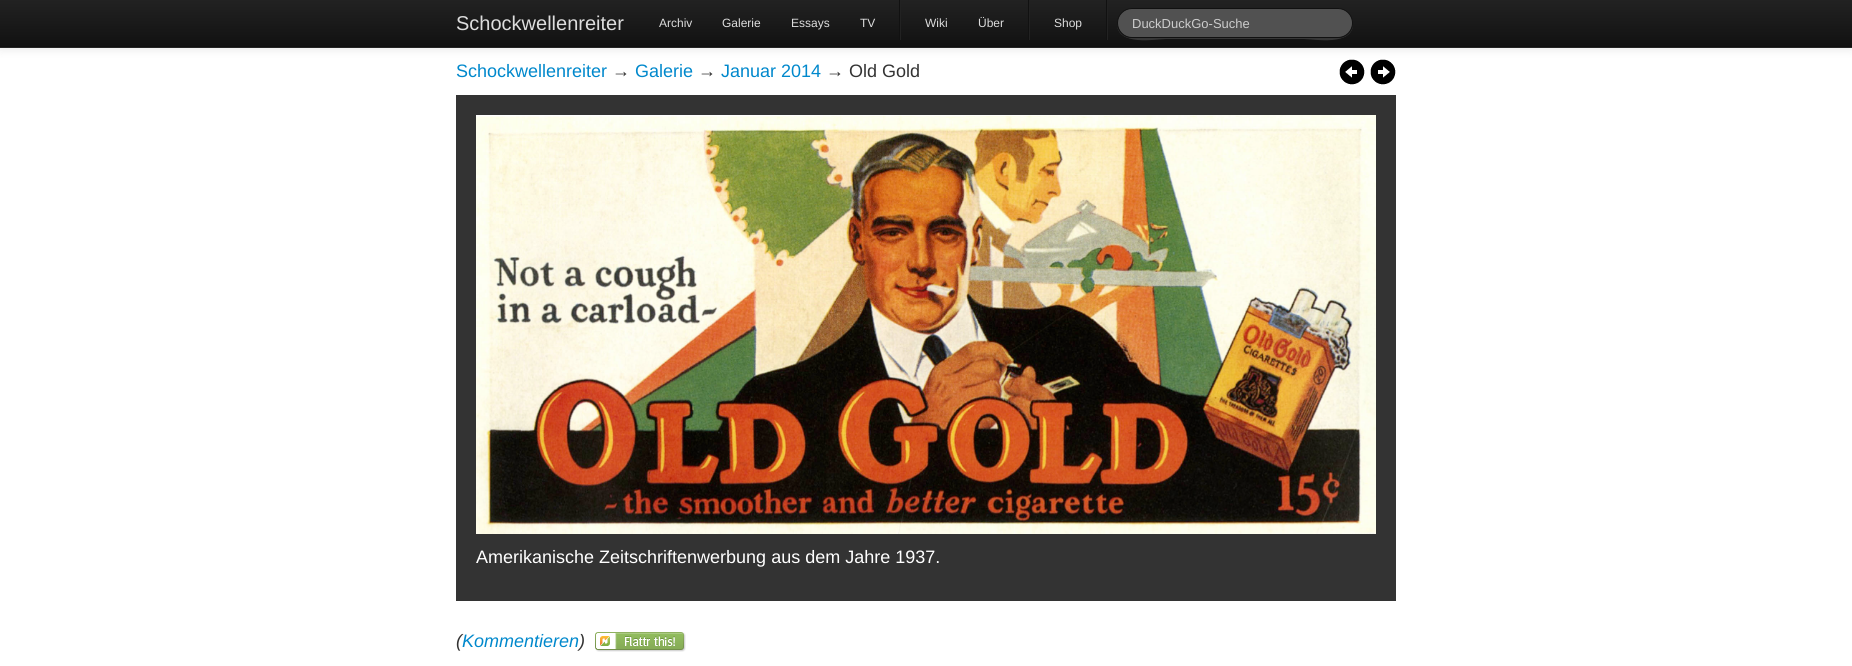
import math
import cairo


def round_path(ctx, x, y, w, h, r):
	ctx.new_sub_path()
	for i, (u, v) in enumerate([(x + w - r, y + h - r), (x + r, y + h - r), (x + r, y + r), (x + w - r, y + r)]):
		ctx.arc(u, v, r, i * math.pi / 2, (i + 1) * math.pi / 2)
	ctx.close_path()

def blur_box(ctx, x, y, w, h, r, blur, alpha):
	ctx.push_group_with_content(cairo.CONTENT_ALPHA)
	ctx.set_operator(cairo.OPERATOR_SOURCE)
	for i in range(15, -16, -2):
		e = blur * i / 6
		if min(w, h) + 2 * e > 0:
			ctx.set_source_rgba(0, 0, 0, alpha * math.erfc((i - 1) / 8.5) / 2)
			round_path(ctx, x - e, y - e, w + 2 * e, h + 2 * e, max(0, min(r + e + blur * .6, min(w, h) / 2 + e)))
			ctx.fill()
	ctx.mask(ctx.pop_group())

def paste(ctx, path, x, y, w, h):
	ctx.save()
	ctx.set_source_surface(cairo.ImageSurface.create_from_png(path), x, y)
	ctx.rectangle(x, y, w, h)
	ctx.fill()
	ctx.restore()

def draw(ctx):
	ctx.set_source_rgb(1, 1, 1)
	ctx.paint()
	ctx.set_source_rgb(0, 0, 0)
	blur_box(ctx, 0, 1, 1852, 48, 0, 5, 0.1)
	gradient = cairo.LinearGradient(926, 0, 926, 47)
	gradient.add_color_stop_rgba(0, 0.133, 0.133, 0.133, 1)
	gradient.add_color_stop_rgba(1, 0.067, 0.067, 0.067, 1)
	ctx.set_source(gradient)
	ctx.rectangle(0, 0, 1852, 46)
	ctx.fill()
	ctx.set_source_rgb(0.059, 0.059, 0.059)
	ctx.rectangle(0, 46, 1852, 1)
	ctx.fill()
	ctx.set_source_rgb(0.145, 0.145, 0.145)
	ctx.rectangle(0, 47, 1852, 1)
	ctx.fill()
	ctx.select_font_face('Liberation Sans')
	ctx.set_font_size(20)
	ctx.set_source_rgb(0.867, 0.867, 0.867)
	ctx.move_to(456, 30)
	ctx.show_text('Schockwellenreiter')
	ctx.set_font_size(12)
	for x, y, s in [
		(659, 27, 'Archiv'),
		(722, 27, 'Galerie'),
		(791, 27, 'Essays'),
		(860, 27, 'TV'),
	]:
		ctx.move_to(x, y)
		ctx.show_text(s)
	ctx.set_source_rgb(0.133, 0.133, 0.133)
	ctx.rectangle(900, 0, 1, 40)
	ctx.fill()
	ctx.set_source_rgb(0.067, 0.067, 0.067)
	ctx.rectangle(899, 0, 1, 40)
	ctx.fill()
	ctx.set_source_rgb(0.867, 0.867, 0.867)
	ctx.move_to(925, 27)
	ctx.show_text('Wiki')
	ctx.move_to(978, 27)
	ctx.show_text('Über')
	ctx.set_source_rgb(0.133, 0.133, 0.133)
	ctx.rectangle(1029, 0, 1, 40)
	ctx.fill()
	ctx.set_source_rgb(0.067, 0.067, 0.067)
	ctx.rectangle(1028, 0, 1, 40)
	ctx.fill()
	ctx.set_source_rgb(0.867, 0.867, 0.867)
	ctx.move_to(1054, 27)
	ctx.show_text('Shop')
	ctx.set_source_rgb(0.133, 0.133, 0.133)
	ctx.rectangle(1107, 0, 1, 40)
	ctx.fill()
	ctx.set_source_rgb(0.067, 0.067, 0.067)
	ctx.rectangle(1106, 0, 1, 40)
	ctx.fill()
	ctx.set_source_rgb(0.216, 0.216, 0.216)
	ctx.new_path()
	ctx.move_to(1117, 23)
	ctx.curve_to(1116, 47, 1157, 39, 1166, 39)
	ctx.line_to(1304, 39)
	ctx.curve_to(1313, 39, 1354, 47, 1353, 23)
	ctx.curve_to(1353, 32, 1346, 38, 1338, 38)
	ctx.line_to(1132, 38)
	ctx.curve_to(1124, 38, 1117, 32, 1117, 23)
	ctx.close_path()
	ctx.fill()
	ctx.set_source_rgb(0.318, 0.318, 0.318)
	round_path(ctx, 1117.5, 8.5, 235, 29, 14.5)
	ctx.fill_preserve()
	ctx.set_source_rgb(0.067, 0.067, 0.067)
	ctx.set_line_width(1)
	ctx.stroke()
	ctx.set_font_size(13)
	ctx.set_source_rgb(0.8, 0.8, 0.8)
	ctx.move_to(1132, 28)
	ctx.show_text('DuckDuckGo-Suche')
	ctx.set_font_size(18)
	ctx.set_source_rgb(0, 0.533, 0.8)
	ctx.move_to(456, 77)
	ctx.show_text('Schockwellenreiter')
	ctx.set_source_rgb(0.2, 0.2, 0.2)
	ctx.move_to(612, 77)
	ctx.show_text('→')
	ctx.set_source_rgb(0, 0.533, 0.8)
	ctx.move_to(635, 77)
	ctx.show_text('Galerie')
	ctx.set_source_rgb(0.2, 0.2, 0.2)
	ctx.move_to(698, 77)
	ctx.show_text('→')
	ctx.set_source_rgb(0, 0.533, 0.8)
	ctx.move_to(721, 77)
	ctx.show_text('Januar 2014')
	ctx.set_source_rgb(0.2, 0.2, 0.2)
	ctx.move_to(826, 77)
	ctx.show_text('→ Old Gold')
	paste(ctx, 'media/1.png', 1339, 59, 26, 26)
	paste(ctx, 'media/2.png', 1370, 59, 26, 26)
	ctx.rectangle(456, 95, 940, 506)
	ctx.fill()
	paste(ctx, 'media/3.png', 476, 115, 900, 419)
	ctx.set_source_rgb(1, 1, 1)
	ctx.move_to(476, 563)
	ctx.show_text('Amerikanische Zeitschriftenwerbung aus dem Jahre 1937.')
	ctx.select_font_face('Liberation Sans', cairo.FONT_SLANT_ITALIC)
	ctx.set_source_rgb(0.2, 0.2, 0.2)
	ctx.move_to(456, 647)
	ctx.show_text('(')
	ctx.set_source_rgb(0, 0.533, 0.8)
	ctx.move_to(462, 647)
	ctx.show_text('Kommentieren')
	ctx.set_source_rgb(0.2, 0.2, 0.2)
	ctx.move_to(579, 647)
	ctx.show_text(')')
	paste(ctx, 'media/4.png', 595, 632, 91, 20)


surface = cairo.ImageSurface(cairo.FORMAT_RGB24, 1852, 666)
ctx = cairo.Context(surface)
options = cairo.FontOptions()
options.set_hint_metrics(cairo.HINT_METRICS_OFF)
options.set_hint_style(cairo.HINT_STYLE_NONE)
ctx.set_font_options(options)
ctx.set_miter_limit(4)
draw(ctx)
surface.write_to_png('image.png')
